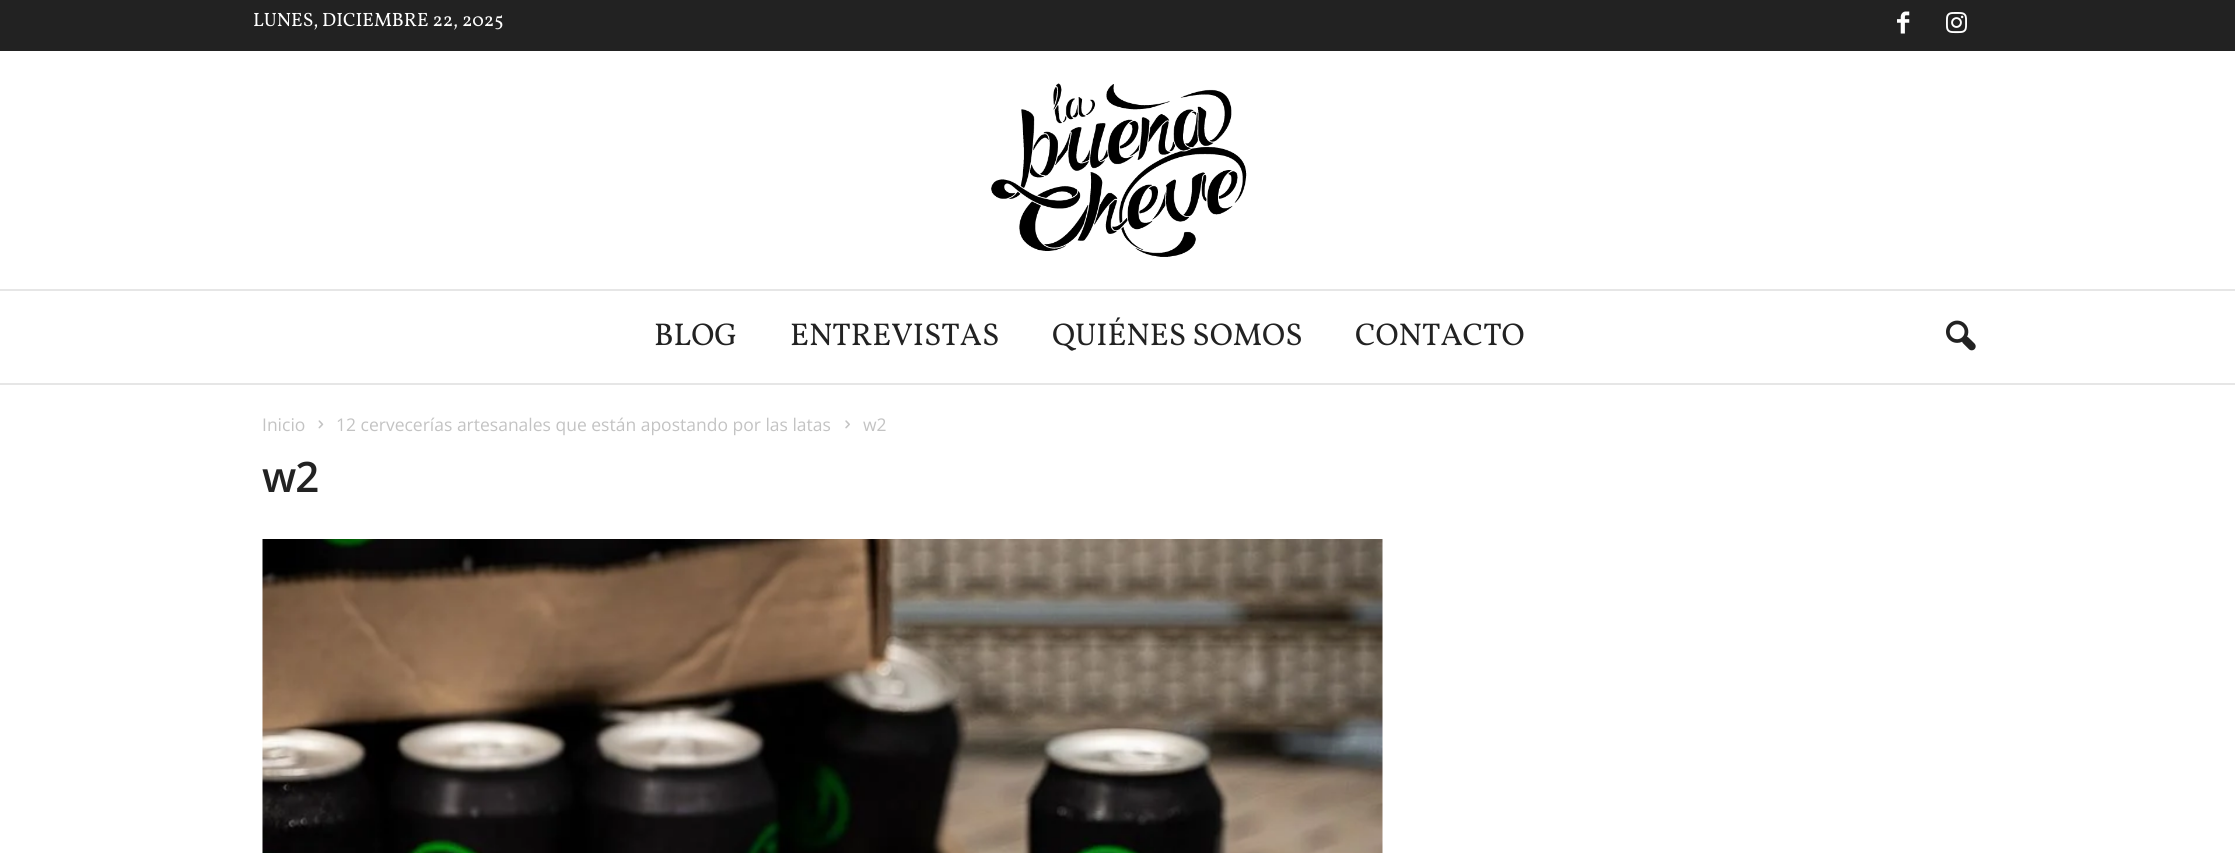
import math
import cairo


def write_spaced(ctx, x, y, s, letter, word):
	ctx.move_to(x, y)
	for ch in s:
		ctx.show_text(ch)
		ctx.rel_move_to(letter + word * (ch == ' '), 0)

def paste(ctx, path, x, y, w, h):
	ctx.save()
	ctx.set_source_surface(cairo.ImageSurface.create_from_png(path), x, y)
	ctx.rectangle(x, y, w, h)
	ctx.fill()
	ctx.restore()

def draw(ctx):
	ctx.set_source_rgb(1, 1, 1)
	ctx.paint()
	ctx.set_source_rgb(0.133, 0.133, 0.133)
	ctx.rectangle(0, 0, 2235, 51)
	ctx.fill()
	ctx.select_font_face('Vollkorn')
	ctx.set_font_size(19.25)
	ctx.set_source_rgb(1, 1, 1)
	ctx.move_to(253, 26)
	ctx.show_text('LUNES, DICIEMBRE 22, 2025')
	paste(ctx, 'media/1.png', 1897, 11, 13, 23)
	paste(ctx, 'media/2.png', 1946, 12, 21, 22)
	paste(ctx, 'media/3.png', 991, 83, 256, 174)
	ctx.set_source_rgb(0.902, 0.902, 0.902)
	ctx.rectangle(0, 289, 2235, 2)
	ctx.fill()
	ctx.rectangle(0, 383, 2235, 2)
	ctx.fill()
	ctx.set_font_size(31.5)
	ctx.set_source_rgb(0.133, 0.133, 0.133)
	for x, y, s in [
		(654, 345, 'BLOG'),
		(790, 345, 'ENTREVISTAS'),
		(1052, 345, 'QUIÉNES SOMOS'),
		(1355, 345, 'CONTACTO'),
	]:
		ctx.move_to(x, y)
		ctx.show_text(s)
	paste(ctx, 'media/4.png', 1946, 320, 30, 31)
	ctx.select_font_face('Open Sans')
	ctx.set_font_size(17.5)
	ctx.set_source_rgb(0.765, 0.765, 0.765)
	ctx.move_to(262, 431)
	ctx.show_text('Inicio')
	paste(ctx, 'media/5.png', 318, 420, 6, 9)
	ctx.move_to(336, 431)
	ctx.show_text('12 cervecerías artesanales que están apostando por las latas')
	paste(ctx, 'media/6.png', 845, 420, 5, 9)
	ctx.move_to(863, 431)
	ctx.show_text('w2')
	ctx.select_font_face('Open Sans SemiBold')
	ctx.set_font_size(42)
	ctx.set_source_rgb(0.133, 0.133, 0.133)
	write_spaced(ctx, 262, 492, 'w2', -1, 0)
	paste(ctx, 'media/7.png', 262, 539, 1121, 314)


surface = cairo.ImageSurface(cairo.FORMAT_RGB24, 2235, 853)
ctx = cairo.Context(surface)
options = cairo.FontOptions()
options.set_hint_metrics(cairo.HINT_METRICS_OFF)
options.set_hint_style(cairo.HINT_STYLE_NONE)
ctx.set_font_options(options)
ctx.set_miter_limit(4)
draw(ctx)
surface.write_to_png('image.png')
